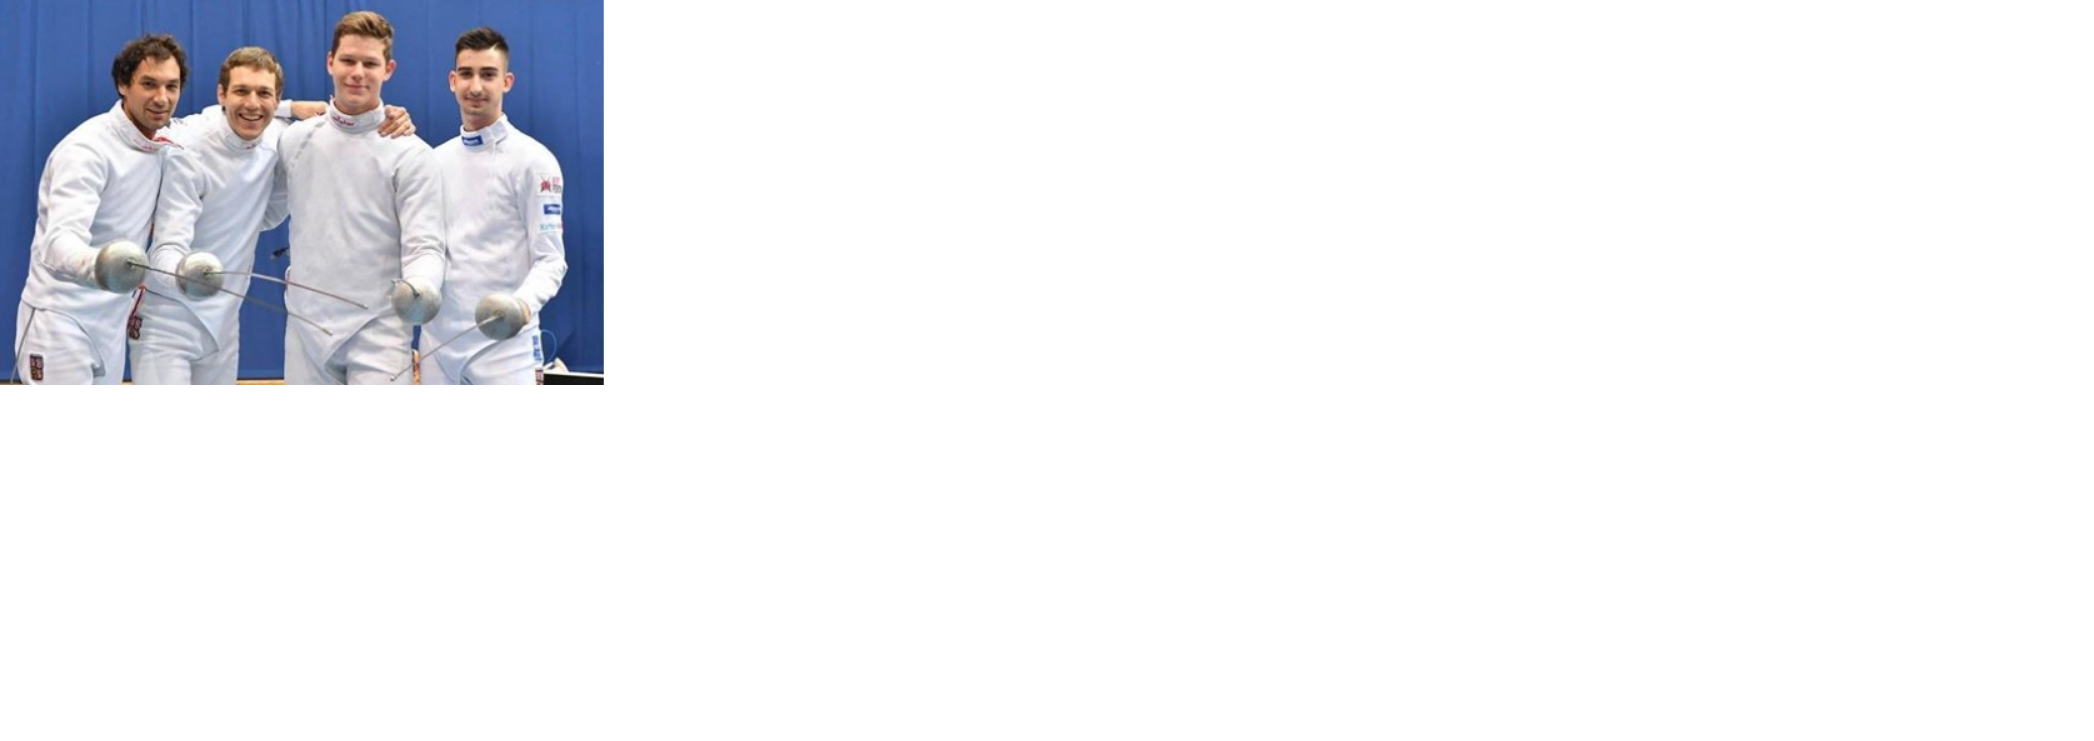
import math
import cairo


def paste(ctx, path, x, y, w, h):
	ctx.save()
	ctx.set_source_surface(cairo.ImageSurface.create_from_png(path), x, y)
	ctx.rectangle(x, y, w, h)
	ctx.fill()
	ctx.restore()

def draw(ctx):
	ctx.set_source_rgb(1, 1, 1)
	ctx.paint()
	paste(ctx, 'media/1.png', 0, 0, 604, 385)


surface = cairo.ImageSurface(cairo.FORMAT_RGB24, 2094, 741)
ctx = cairo.Context(surface)
options = cairo.FontOptions()
options.set_hint_metrics(cairo.HINT_METRICS_OFF)
options.set_hint_style(cairo.HINT_STYLE_NONE)
ctx.set_font_options(options)
ctx.set_miter_limit(4)
draw(ctx)
surface.write_to_png('image.png')
